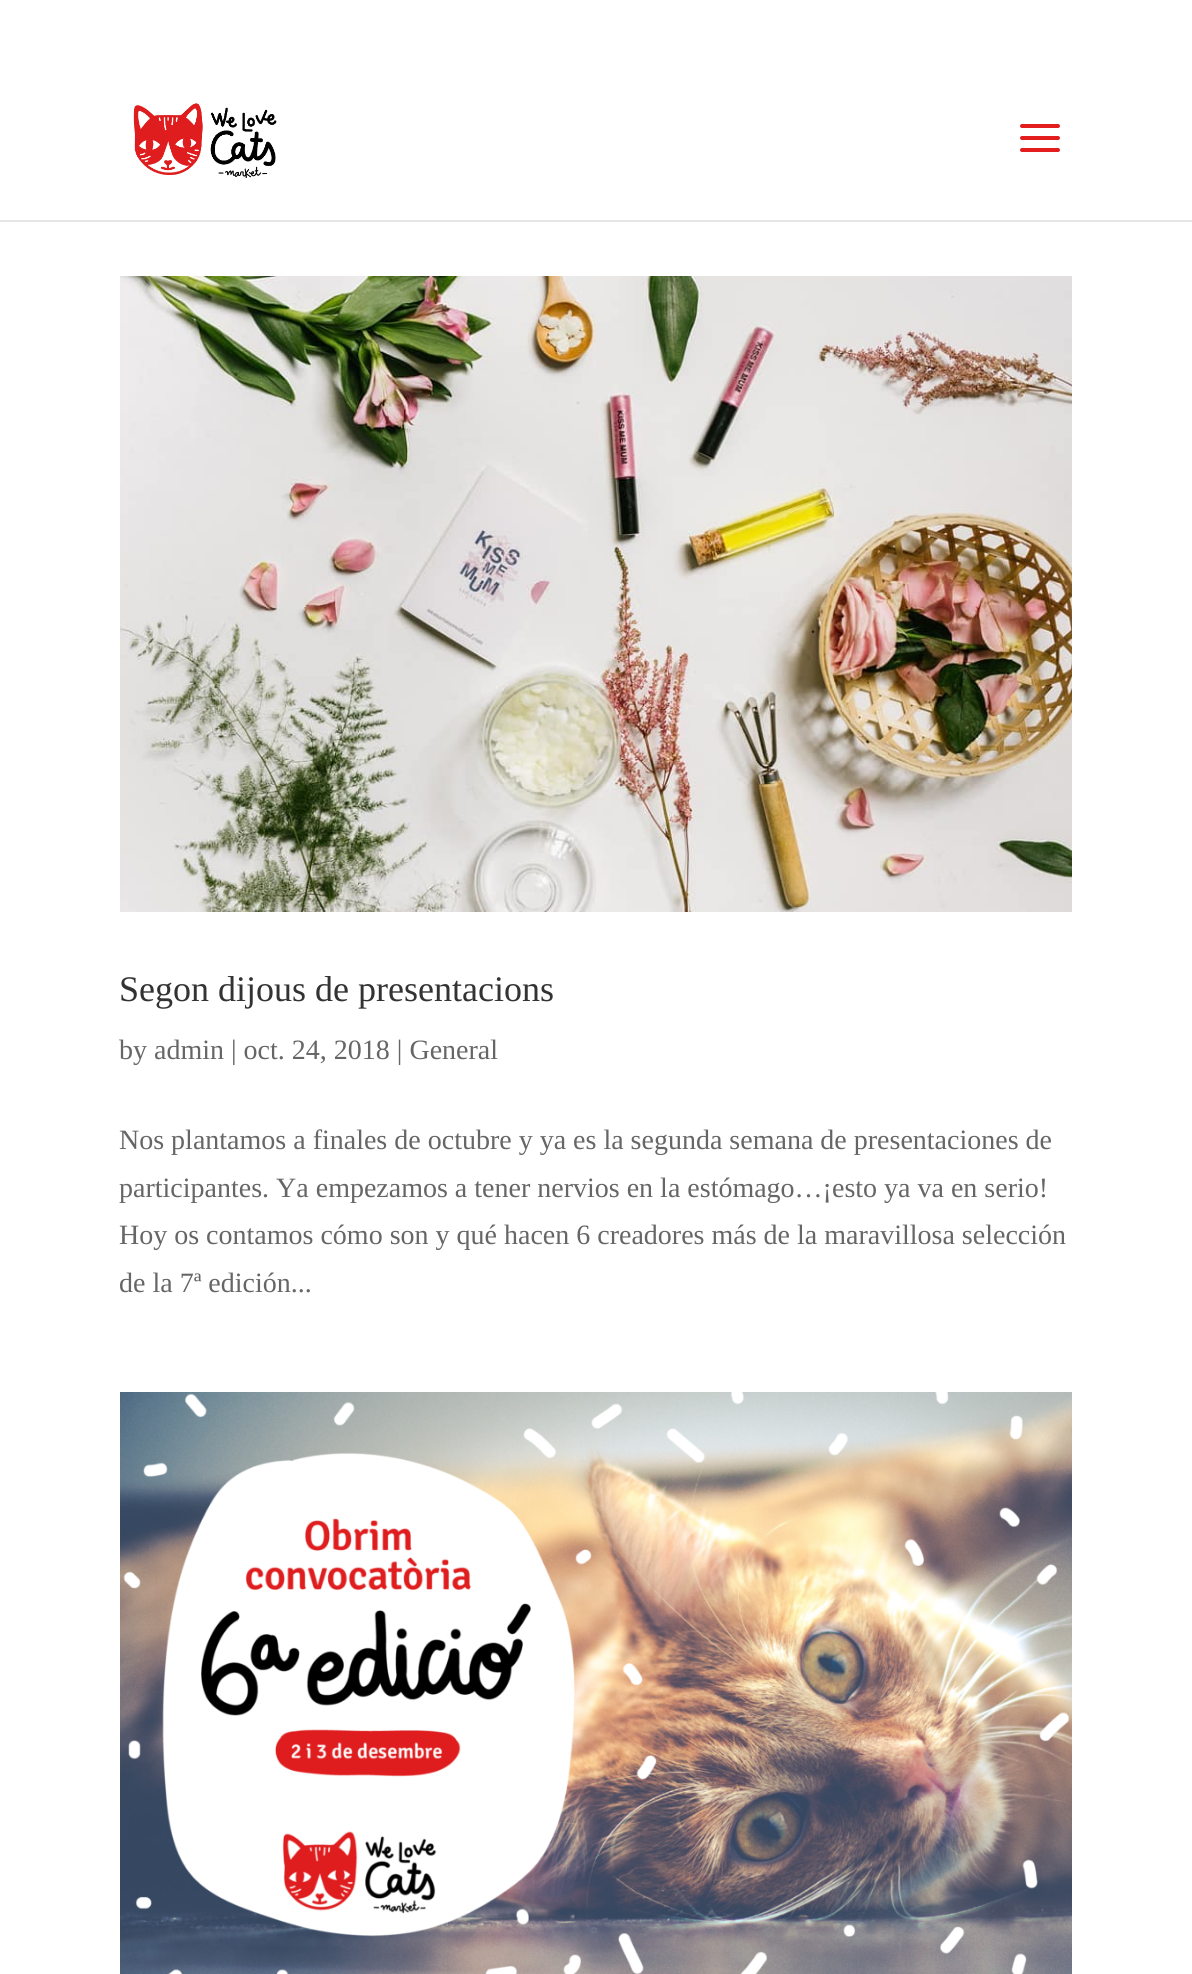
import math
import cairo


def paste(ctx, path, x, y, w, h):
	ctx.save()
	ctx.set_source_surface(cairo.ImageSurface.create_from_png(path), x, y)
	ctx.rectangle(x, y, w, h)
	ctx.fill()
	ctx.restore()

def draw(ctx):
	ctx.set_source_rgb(1, 1, 1)
	ctx.paint()
	ctx.set_source_rgb(0.902, 0.902, 0.902)
	ctx.rectangle(0, 220, 1192, 2)
	ctx.fill()
	paste(ctx, 'media/1.png', 133, 103, 144, 75)
	paste(ctx, 'media/2.png', 1020, 124, 40, 28)
	paste(ctx, 'media/3.png', 120, 276, 952, 636)
	ctx.select_font_face('Liberation Serif')
	ctx.set_font_size(36)
	ctx.set_source_rgb(0.2, 0.2, 0.2)
	ctx.move_to(119, 1001)
	ctx.show_text('Segon dijous de presentacions')
	ctx.set_font_size(28)
	ctx.set_source_rgb(0.4, 0.4, 0.4)
	for x, y, s in [
		(119, 1059, 'by admin | oct. 24, 2018 | General'),
		(119, 1149, 'Nos plantamos a finales de octubre y ya es la segunda semana de presentaciones de'),
		(119, 1197, 'participantes. Ya empezamos a tener nervios en la estómago…¡esto ya va en serio!'),
		(119, 1244, 'Hoy os contamos cómo son y qué hacen 6 creadores más de la maravillosa selección'),
		(119, 1292, 'de la 7ª edición...'),
	]:
		ctx.move_to(x, y)
		ctx.show_text(s)
	paste(ctx, 'media/4.png', 120, 1392, 952, 582)


surface = cairo.ImageSurface(cairo.FORMAT_RGB24, 1192, 1974)
ctx = cairo.Context(surface)
options = cairo.FontOptions()
options.set_hint_metrics(cairo.HINT_METRICS_OFF)
options.set_hint_style(cairo.HINT_STYLE_NONE)
ctx.set_font_options(options)
ctx.set_miter_limit(4)
draw(ctx)
surface.write_to_png('image.png')
